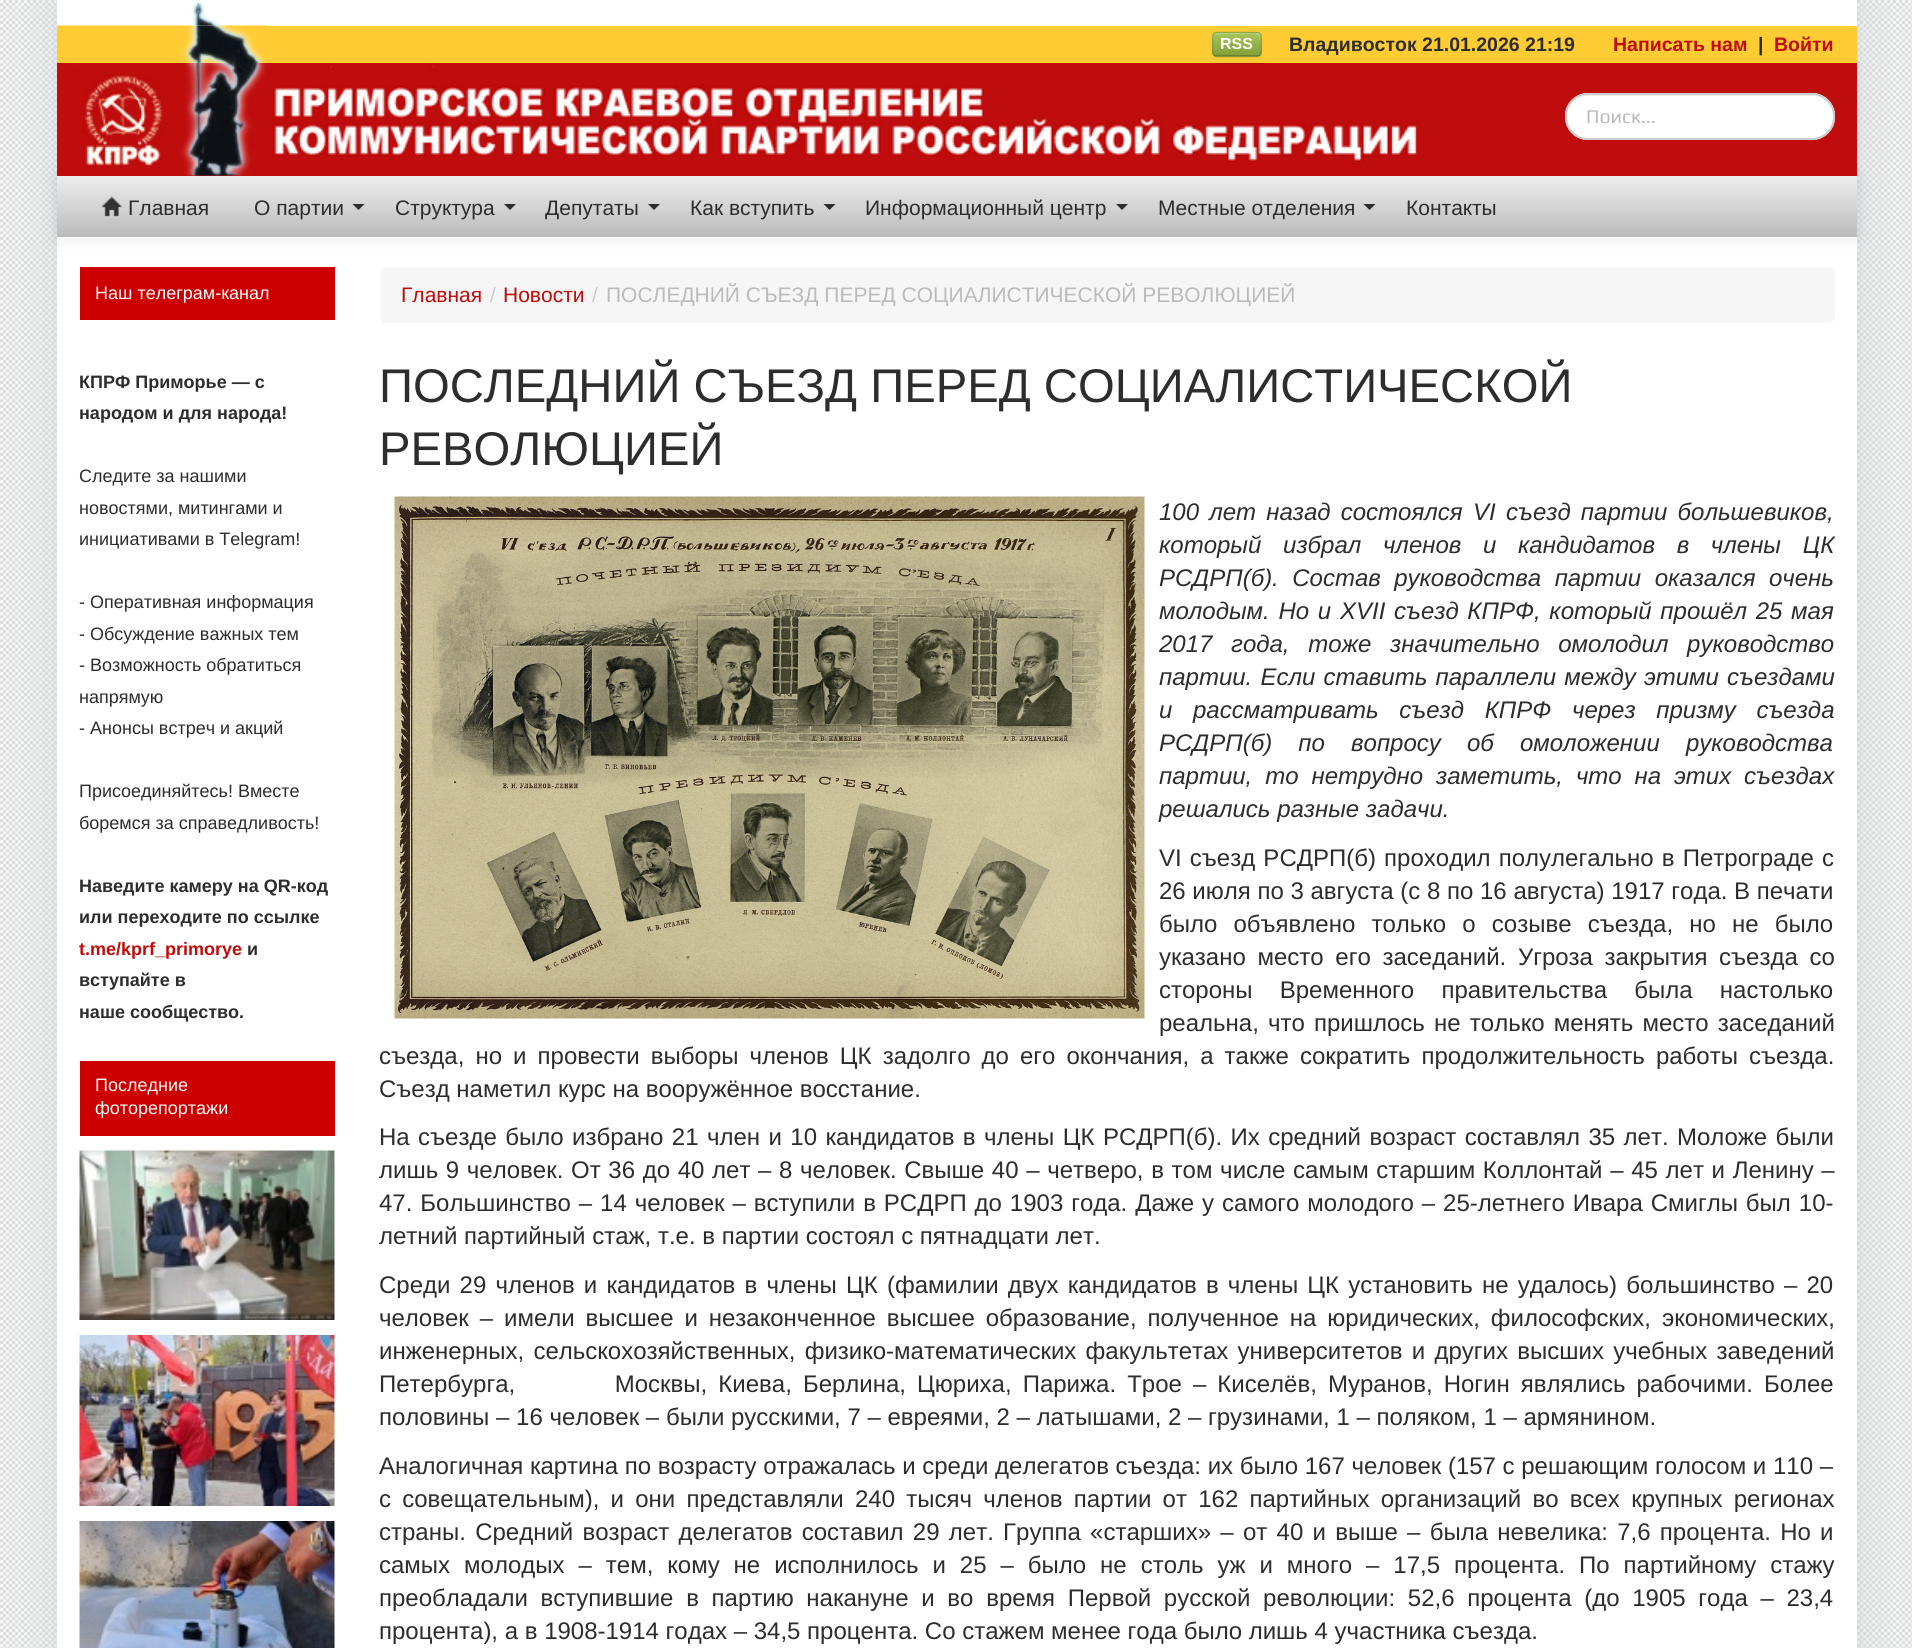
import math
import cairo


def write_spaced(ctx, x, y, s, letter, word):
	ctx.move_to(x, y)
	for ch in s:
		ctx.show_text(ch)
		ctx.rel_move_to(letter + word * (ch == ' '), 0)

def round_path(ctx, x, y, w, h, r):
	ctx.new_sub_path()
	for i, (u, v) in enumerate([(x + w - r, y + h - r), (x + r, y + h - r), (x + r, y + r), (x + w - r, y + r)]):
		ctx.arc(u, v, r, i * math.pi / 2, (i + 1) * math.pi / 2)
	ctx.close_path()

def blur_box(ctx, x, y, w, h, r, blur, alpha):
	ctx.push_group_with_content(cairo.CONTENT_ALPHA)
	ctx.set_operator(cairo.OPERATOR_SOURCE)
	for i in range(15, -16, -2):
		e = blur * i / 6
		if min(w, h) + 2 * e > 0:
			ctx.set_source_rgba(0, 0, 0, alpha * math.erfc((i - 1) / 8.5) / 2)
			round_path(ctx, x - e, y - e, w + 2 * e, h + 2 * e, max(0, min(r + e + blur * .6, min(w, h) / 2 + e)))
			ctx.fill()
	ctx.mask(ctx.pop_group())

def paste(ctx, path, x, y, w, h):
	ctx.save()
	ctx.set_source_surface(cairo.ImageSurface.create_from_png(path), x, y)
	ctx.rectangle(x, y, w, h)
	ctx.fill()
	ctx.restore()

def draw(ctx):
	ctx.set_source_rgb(1, 1, 1)
	ctx.paint()
	paste(ctx, 'media/1.png', 0, 0, 1912, 1648)
	ctx.set_source_rgb(0.831, 0.855, 0.859)
	blur_box(ctx, 57, 0, 1800, 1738, 0, 30, 1)
	ctx.set_source_rgb(1, 1, 1)
	ctx.rectangle(57, 0, 1800, 1648)
	ctx.fill()
	paste(ctx, 'media/2.png', 191, 0, 30, 26)
	ctx.set_source_rgb(1, 0.8, 0.2)
	ctx.rectangle(268, 26, 1589, 37)
	ctx.fill()
	paste(ctx, 'media/3.png', 57, 25, 212, 38)
	ctx.set_source_rgb(0, 0, 0)
	blur_box(ctx, 1212, 33, 50, 26, 5, 1.5, 0.05)
	ctx.set_source_rgb(0.596, 0.714, 0.302)
	round_path(ctx, 1212, 32, 50, 25, 5)
	ctx.fill()
	ctx.save()
	round_path(ctx, 1212, 32, 50, 25, 5)
	ctx.clip()
	gradient = cairo.LinearGradient(1237, 33, 1237, 56)
	gradient.add_color_stop_rgba(0, 0.659, 0.776, 0.357, 1)
	gradient.add_color_stop_rgba(1, 0.506, 0.62, 0.216, 1)
	ctx.set_source(gradient)
	ctx.rectangle(1212, 33, 50, 23)
	ctx.fill()
	ctx.restore()
	ctx.set_source_rgba(1, 1, 1, 0.2)
	ctx.new_path()
	ctx.move_to(1216, 34)
	ctx.line_to(1244, 34)
	ctx.curve_to(1258, 34, 1260, 31, 1260, 46)
	ctx.line_to(1260, 36)
	ctx.curve_to(1260, 34, 1259, 33, 1257, 33)
	ctx.line_to(1217, 33)
	ctx.curve_to(1215, 33, 1214, 34, 1214, 36)
	ctx.curve_to(1214, 35, 1215, 34, 1216, 34)
	ctx.close_path()
	ctx.fill()
	ctx.new_path()
	ctx.move_to(1259.5, 55)
	ctx.curve_to(1259, 56, 1258, 56, 1257, 56)
	ctx.line_to(1216.5, 56)
	ctx.curve_to(1215.5, 56, 1214.5, 56, 1214, 55)
	ctx.set_source_rgba(0, 0, 0, 0.25)
	ctx.set_line_width(1.5)
	ctx.stroke()
	ctx.new_path()
	ctx.move_to(1214, 55)
	ctx.curve_to(1211.5, 53, 1213, 47, 1213, 44)
	ctx.curve_to(1213, 32.5, 1211, 32, 1223, 32)
	ctx.line_to(1250, 32)
	ctx.curve_to(1262.5, 32, 1261, 32.5, 1261, 44)
	ctx.curve_to(1261, 47, 1262, 53, 1259.5, 55)
	ctx.set_source_rgba(0, 0, 0, 0.1)
	ctx.stroke()
	ctx.select_font_face('Liberation Sans', cairo.FONT_SLANT_NORMAL, cairo.FONT_WEIGHT_BOLD)
	ctx.set_font_size(16)
	ctx.set_source_rgb(1, 1, 1)
	ctx.move_to(1220, 49)
	ctx.show_text('RSS')
	ctx.set_font_size(19.5)
	ctx.set_source_rgb(0.176, 0.176, 0.176)
	ctx.move_to(1289, 51)
	ctx.show_text('Владивосток 21.01.2026 21:19')
	ctx.set_source_rgb(0.749, 0.047, 0.047)
	ctx.move_to(1613, 51)
	ctx.show_text('Написать нам')
	ctx.set_source_rgb(0.176, 0.176, 0.176)
	ctx.move_to(1758, 51)
	ctx.show_text('|')
	ctx.set_source_rgb(0.749, 0.047, 0.047)
	ctx.move_to(1774, 51)
	ctx.show_text('Войти')
	ctx.set_source_rgb(0, 0, 0)
	blur_box(ctx, 57, 176, 1800, 61, 0, 7.5, 0.1)
	ctx.set_source_rgb(0.749, 0.047, 0.047)
	ctx.rectangle(57, 63, 1800, 113)
	ctx.fill()
	paste(ctx, 'media/4.png', 73, 63, 1344, 113)
	ctx.set_source_rgb(1, 1, 1)
	round_path(ctx, 1565, 93, 270, 47, 23)
	ctx.fill()
	ctx.set_source_rgb(0.925, 0.925, 0.925)
	ctx.new_path()
	ctx.move_to(1587, 96)
	ctx.line_to(1812, 96)
	ctx.curve_to(1824, 96, 1833, 105, 1833, 117)
	ctx.curve_to(1833, 86, 1792, 95, 1774, 95)
	ctx.line_to(1624, 95)
	ctx.curve_to(1607, 95, 1566, 86, 1566, 117)
	ctx.curve_to(1566, 105, 1575, 96, 1587, 96)
	ctx.close_path()
	ctx.fill()
	round_path(ctx, 1566, 94, 268, 45, 22)
	ctx.set_source_rgb(0.8, 0.8, 0.8)
	ctx.set_line_width(2)
	ctx.stroke()
	ctx.select_font_face('Play')
	ctx.set_source_rgb(0.733, 0.733, 0.733)
	ctx.move_to(1586, 123)
	ctx.show_text('Поиск...')
	ctx.set_source_rgba(1, 1, 1, 0.4)
	ctx.rectangle(57, 237, 1800, 2)
	ctx.fill()
	gradient = cairo.LinearGradient(957, 175, 957, 237)
	gradient.add_color_stop_rgba(0, 0.933, 0.933, 0.933, 1)
	gradient.add_color_stop_rgba(1, 0.733, 0.733, 0.733, 1)
	ctx.set_source(gradient)
	ctx.rectangle(57, 176, 1800, 61)
	ctx.fill()
	paste(ctx, 'media/5.png', 102, 196, 20, 22)
	ctx.select_font_face('Liberation Sans')
	ctx.set_font_size(21)
	ctx.set_source_rgb(0.176, 0.176, 0.176)
	ctx.move_to(128, 215)
	ctx.show_text('Главная')
	ctx.move_to(254, 215)
	ctx.show_text('О партии')
	ctx.new_path()
	ctx.move_to(352.5, 204)
	ctx.line_to(364.5, 204)
	ctx.line_to(358.5, 210)
	ctx.close_path()
	ctx.fill()
	ctx.move_to(395, 215)
	ctx.show_text('Структура')
	ctx.new_path()
	ctx.move_to(504, 204)
	ctx.line_to(516, 204)
	ctx.line_to(510, 210)
	ctx.close_path()
	ctx.fill()
	ctx.move_to(545, 215)
	ctx.show_text('Депутаты')
	ctx.new_path()
	ctx.move_to(648, 204)
	ctx.line_to(660, 204)
	ctx.line_to(654, 210)
	ctx.close_path()
	ctx.fill()
	ctx.move_to(690, 215)
	ctx.show_text('Как вступить')
	ctx.new_path()
	ctx.move_to(823.5, 204)
	ctx.line_to(835.5, 204)
	ctx.line_to(829.5, 210)
	ctx.close_path()
	ctx.fill()
	ctx.move_to(865, 215)
	ctx.show_text('Информационный центр')
	ctx.new_path()
	ctx.move_to(1116, 204)
	ctx.line_to(1128, 204)
	ctx.line_to(1122, 210)
	ctx.close_path()
	ctx.fill()
	ctx.move_to(1158, 215)
	ctx.show_text('Местные отделения')
	ctx.new_path()
	ctx.move_to(1363.5, 204)
	ctx.line_to(1375.5, 204)
	ctx.line_to(1369.5, 210)
	ctx.close_path()
	ctx.fill()
	ctx.move_to(1406, 215)
	ctx.show_text('Контакты')
	ctx.set_source_rgb(0.8, 0, 0)
	ctx.rectangle(80, 267, 255, 53)
	ctx.fill()
	ctx.set_font_size(18)
	ctx.set_source_rgb(1, 1, 1)
	ctx.move_to(95, 299)
	ctx.show_text('Наш телеграм-канал')
	ctx.select_font_face('Liberation Sans', cairo.FONT_SLANT_NORMAL, cairo.FONT_WEIGHT_BOLD)
	ctx.set_source_rgb(0.176, 0.176, 0.176)
	ctx.move_to(79, 388)
	ctx.show_text('КПРФ Приморье — с')
	ctx.move_to(79, 419)
	ctx.show_text('народом и для народа!')
	ctx.select_font_face('Liberation Sans')
	for x, y, s in [
		(79, 482, 'Следите за нашими'),
		(79, 514, 'новостями, митингами и'),
		(79, 545, 'инициативами в Telegram!'),
		(79, 608, '- Оперативная информация'),
		(79, 640, '- Обсуждение важных тем'),
		(79, 671, '- Возможность обратиться'),
		(79, 703, 'напрямую'),
		(79, 734, '- Анонсы встреч и акций'),
		(79, 797, 'Присоединяйтесь! Вместе'),
		(79, 829, 'боремся за справедливость!'),
	]:
		ctx.move_to(x, y)
		ctx.show_text(s)
	ctx.select_font_face('Liberation Sans', cairo.FONT_SLANT_NORMAL, cairo.FONT_WEIGHT_BOLD)
	ctx.move_to(79, 892)
	ctx.show_text('Наведите камеру на QR-код')
	ctx.move_to(79, 923)
	ctx.show_text('или переходите по ссылке')
	ctx.set_source_rgb(0.749, 0.047, 0.047)
	ctx.move_to(79, 955)
	ctx.show_text('t.me/kprf_primorye')
	ctx.set_source_rgb(0.176, 0.176, 0.176)
	for x, y, s in [
		(247, 955, 'и'),
		(79, 986, 'вступайте в'),
		(79, 1018, 'наше сообщество.'),
	]:
		ctx.move_to(x, y)
		ctx.show_text(s)
	ctx.set_source_rgb(0.8, 0, 0)
	ctx.rectangle(80, 1061, 255, 75)
	ctx.fill()
	ctx.select_font_face('Liberation Sans')
	ctx.set_source_rgb(1, 1, 1)
	ctx.move_to(95, 1091)
	ctx.show_text('Последние')
	ctx.move_to(95, 1114)
	ctx.show_text('фоторепортажи')
	paste(ctx, 'media/6.png', 79, 1150, 256, 170)
	paste(ctx, 'media/7.png', 79, 1335, 256, 171)
	paste(ctx, 'media/8.png', 79, 1521, 256, 127)
	ctx.set_source_rgb(0.961, 0.961, 0.961)
	round_path(ctx, 380, 267, 1455, 56, 6)
	ctx.fill()
	ctx.set_font_size(21)
	ctx.set_source_rgb(0.749, 0.047, 0.047)
	ctx.move_to(401, 302)
	ctx.show_text('Главная')
	ctx.set_source_rgb(0.8, 0.8, 0.8)
	ctx.move_to(490, 302)
	ctx.show_text('/')
	ctx.set_source_rgb(0.749, 0.047, 0.047)
	ctx.move_to(503, 302)
	ctx.show_text('Новости')
	ctx.set_source_rgb(0.8, 0.8, 0.8)
	ctx.move_to(592, 302)
	ctx.show_text('/')
	ctx.set_source_rgb(0.733, 0.733, 0.733)
	ctx.move_to(606, 302)
	ctx.show_text('ПОСЛЕДНИЙ СЪЕЗД ПЕРЕД СОЦИАЛИСТИЧЕСКОЙ РЕВОЛЮЦИЕЙ')
	ctx.set_font_size(47.25)
	ctx.set_source_rgb(0.176, 0.176, 0.176)
	ctx.move_to(379, 402)
	ctx.show_text('ПОСЛЕДНИЙ СЪЕЗД ПЕРЕД СОЦИАЛИСТИЧЕСКОЙ')
	ctx.move_to(379, 465)
	ctx.show_text('РЕВОЛЮЦИЕЙ')
	paste(ctx, 'media/9.png', 394, 496, 751, 523)
	ctx.select_font_face('Liberation Sans', cairo.FONT_SLANT_ITALIC)
	ctx.set_font_size(24)
	write_spaced(ctx, 1159, 520, '100 лет назад состоялся', 0, 3.5)
	ctx.move_to(1473, 520)
	ctx.show_text('VI')
	write_spaced(ctx, 1506, 520, 'съезд партии большевиков,', 0, 3.5)
	write_spaced(ctx, 1159, 553, 'который избрал членов и кандидатов в члены ЦК', 0, 15)
	write_spaced(ctx, 1159, 586, 'РСДРП(б). Состав руководства партии оказался очень', 0, 6.75)
	write_spaced(ctx, 1159, 619, 'молодым. Но и', 0, 2)
	ctx.move_to(1340, 619)
	ctx.show_text('XVII')
	write_spaced(ctx, 1394, 619, 'съезд КПРФ, который прошёл 25 мая', 0, 2)
	write_spaced(ctx, 1159, 652, '2017 года, тоже значительно омолодил руководство', 0, 12)
	write_spaced(ctx, 1159, 685, 'партии. Если ставить параллели между этими съездами', 0, 1.5)
	write_spaced(ctx, 1159, 718, 'и рассматривать съезд КПРФ через призму съезда', 0, 14)
	write_spaced(ctx, 1159, 751, 'РСДРП(б) по вопросу об омоложении руководства', 0, 19.5)
	write_spaced(ctx, 1159, 784, 'партии, то нетрудно заметить, что на этих съездах', 0, 6.25)
	ctx.move_to(1159, 817)
	ctx.show_text('решались разные задачи.')
	ctx.select_font_face('Liberation Sans')
	write_spaced(ctx, 1159, 866, 'VI съезд РСДРП(б) проходил полулегально в Петрограде с', 0, 1.5)
	ctx.move_to(1159, 899)
	ctx.show_text('26 июля по 3 августа (с 8 по 16 августа) 1917 года. В печати')
	write_spaced(ctx, 1159, 932, 'было объявлено только о созыве съезда, но не было', 0, 9.5)
	write_spaced(ctx, 1159, 965, 'указано место его заседаний. Угроза закрытия съезда со', 0, 5)
	write_spaced(ctx, 1159, 998, 'стороны Временного правительства была настолько', 0, 20.5)
	write_spaced(ctx, 1159, 1031, 'реальна, что пришлось не только менять место заседаний', 0, 2.5)
	write_spaced(ctx, 379, 1064, 'съезда, но и провести выборы членов ЦК задолго до его окончания, а также сократить продолжительность работы съезда.', 0, 4.4)
	ctx.move_to(379, 1097)
	ctx.show_text('Съезд наметил курс на вооружённое восстание.')
	write_spaced(ctx, 379, 1145, 'На съезде было избрано 21 член и 10 кандидатов в члены ЦК РСДРП(б). Их средний возраст составлял 35 лет. Моложе были', 0, 1.75)
	write_spaced(ctx, 379, 1178, 'лишь 9 человек. От 36 до 40 лет – 8 человек. Свыше 40 – четверо, в том числе самым старшим Коллонтай – 45 лет и Ленину –', 0, 1)
	write_spaced(ctx, 379, 1211, '47. Большинство – 14 человек – вступили в РСДРП до 1903 года. Даже у самого молодого – 25-летнего Ивара Смиглы был 10-', 0, 1.25)
	ctx.move_to(379, 1244)
	ctx.show_text('летний партийный стаж, т.е. в партии состоял с пятнадцати лет.')
	write_spaced(ctx, 379, 1293, 'Среди 29 членов и кандидатов в члены ЦК (фамилии двух кандидатов в члены ЦК установить не удалось) большинство – 20', 0, 2.5)
	write_spaced(ctx, 379, 1326, 'человек – имели высшее и незаконченное высшее образование, полученное на юридических, философских, экономических,', 0, 4.25)
	write_spaced(ctx, 379, 1359, 'инженерных, сельскохозяйственных, физико-математических факультетах университетов и других высших учебных заведений', 0, 2.6)
	write_spaced(ctx, 379, 1392, 'Петербурга,         Москвы, Киева, Берлина, Цюриха, Парижа. Трое – Киселёв, Муранов, Ногин являлись рабочими. Более', 0, 4.4)
	ctx.move_to(379, 1425)
	ctx.show_text('половины – 16 человек – были русскими, 7 – евреями, 2 – латышами, 2 – грузинами, 1 – поляком, 1 – армянином.')
	ctx.move_to(379, 1474)
	ctx.show_text('Аналогичная картина по возрасту отражалась и среди делегатов съезда: их было 167 человек (157 с решающим голосом и 110 –')
	write_spaced(ctx, 379, 1507, 'с совещательным), и они представляли 240 тысяч членов партии от 162 партийных организаций во всех крупных регионах', 0, 4.6)
	write_spaced(ctx, 379, 1540, 'страны. Средний возраст делегатов составил 29 лет. Группа «старших» – от 40 и выше – была невелика: 7,6 процента. Но и', 0, 2.6)
	write_spaced(ctx, 379, 1573, 'самых молодых – тем, кому не исполнилось и 25 – было не столь уж и много – 17,5 процента. По партийному стажу', 0, 7.3)
	write_spaced(ctx, 379, 1606, 'преобладали вступившие в партию накануне и во время Первой русской революции: 52,6 процента (до 1905 года – 23,4', 0, 6)
	ctx.move_to(379, 1639)
	ctx.show_text('процента), а в 1908-1914 годах – 34,5 процента. Со стажем менее года было лишь 4 участника съезда.')


surface = cairo.ImageSurface(cairo.FORMAT_RGB24, 1912, 1648)
ctx = cairo.Context(surface)
options = cairo.FontOptions()
options.set_hint_metrics(cairo.HINT_METRICS_OFF)
options.set_hint_style(cairo.HINT_STYLE_NONE)
ctx.set_font_options(options)
ctx.set_miter_limit(4)
draw(ctx)
surface.write_to_png('image.png')
